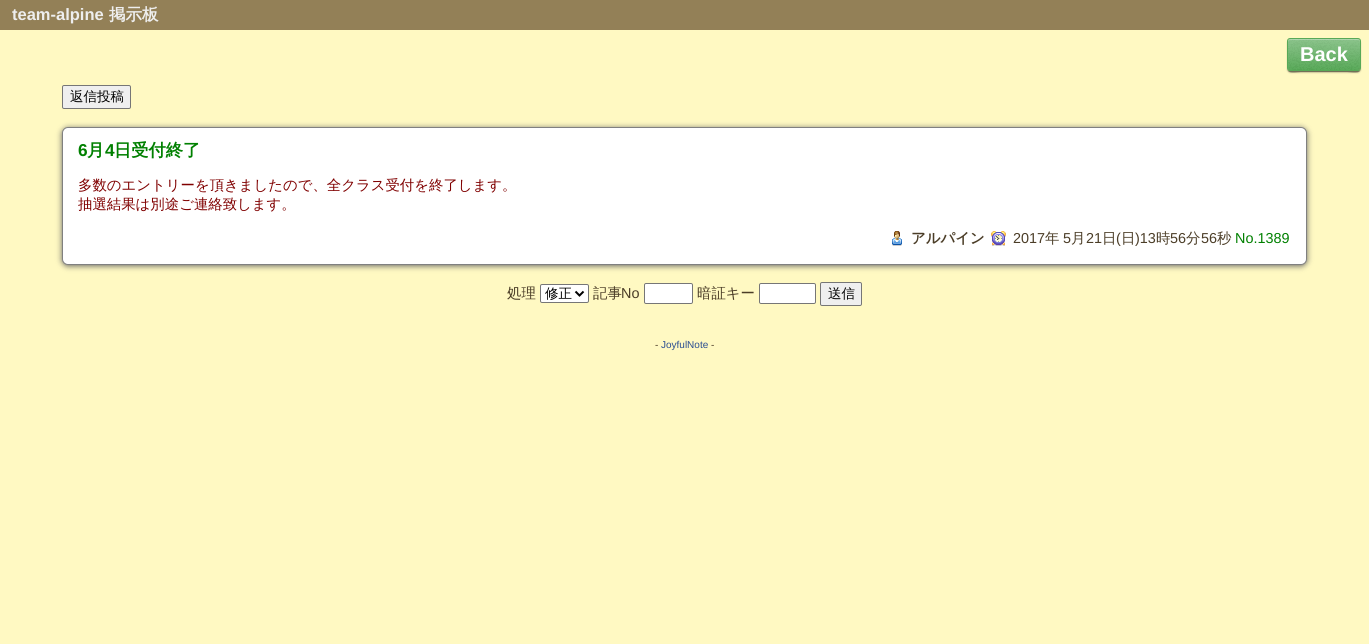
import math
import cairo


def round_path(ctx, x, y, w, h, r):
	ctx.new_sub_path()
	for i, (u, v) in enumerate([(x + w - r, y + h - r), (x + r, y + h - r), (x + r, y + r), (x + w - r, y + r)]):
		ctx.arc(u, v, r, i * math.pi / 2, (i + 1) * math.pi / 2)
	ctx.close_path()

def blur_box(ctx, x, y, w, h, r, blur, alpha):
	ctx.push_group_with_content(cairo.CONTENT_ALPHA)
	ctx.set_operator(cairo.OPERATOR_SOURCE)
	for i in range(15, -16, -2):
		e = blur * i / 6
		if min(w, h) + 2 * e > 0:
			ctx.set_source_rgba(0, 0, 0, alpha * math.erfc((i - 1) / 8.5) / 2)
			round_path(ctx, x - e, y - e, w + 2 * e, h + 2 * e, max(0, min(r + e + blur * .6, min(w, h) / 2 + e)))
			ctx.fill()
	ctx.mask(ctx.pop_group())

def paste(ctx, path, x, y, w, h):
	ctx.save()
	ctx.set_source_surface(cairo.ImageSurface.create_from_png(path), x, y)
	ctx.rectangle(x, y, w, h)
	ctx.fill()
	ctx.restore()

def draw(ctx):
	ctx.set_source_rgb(1, 0.973, 0.761)
	ctx.paint()
	ctx.set_source_rgb(0.576, 0.502, 0.341)
	ctx.rectangle(0, 0, 1369, 30)
	ctx.fill()
	ctx.select_font_face('Liberation Sans', cairo.FONT_SLANT_NORMAL, cairo.FONT_WEIGHT_BOLD)
	ctx.set_font_size(16.5)
	ctx.set_source_rgb(0.933, 0.933, 0.933)
	ctx.move_to(12, 20)
	ctx.show_text('team-alpine')
	ctx.select_font_face('WenQuanYi Zen Hei', cairo.FONT_SLANT_NORMAL, cairo.FONT_WEIGHT_BOLD)
	ctx.move_to(109, 20)
	ctx.show_text('掲示板')
	ctx.set_source_rgb(0, 0, 0)
	blur_box(ctx, 1288, 41, 72, 31, 2, 1, 0.5)
	ctx.set_source_rgba(0, 0, 0, 0.3)
	ctx.new_path()
	ctx.move_to(1287, 68)
	ctx.curve_to(1287, 75, 1297, 72, 1301, 72)
	ctx.line_to(1347, 72)
	ctx.curve_to(1351, 72, 1361, 75, 1361, 68)
	ctx.curve_to(1361, 70, 1360, 71, 1358, 71)
	ctx.line_to(1290, 71)
	ctx.curve_to(1288, 71, 1287, 70, 1287, 68)
	ctx.close_path()
	ctx.fill()
	ctx.set_source_rgb(0.341, 0.663, 0.341)
	round_path(ctx, 1288, 39, 72, 31, 2)
	ctx.fill()
	paste(ctx, 'media/1.png', 1288, 39, 72, 31)
	ctx.set_source_rgba(1, 1, 1, 0.3)
	ctx.new_path()
	ctx.move_to(1290, 40)
	ctx.line_to(1358, 40)
	ctx.curve_to(1359, 40, 1360, 41, 1360, 42)
	ctx.curve_to(1360, 36, 1350, 39, 1347, 39)
	ctx.line_to(1301, 39)
	ctx.curve_to(1298, 39, 1288, 36, 1288, 42)
	ctx.curve_to(1288, 41, 1289, 40, 1290, 40)
	ctx.close_path()
	ctx.fill()
	round_path(ctx, 1287.5, 38.5, 73, 32, 2.5)
	ctx.set_source_rgb(0.341, 0.663, 0.341)
	ctx.set_line_width(1)
	ctx.stroke()
	ctx.select_font_face('Liberation Sans', cairo.FONT_SLANT_NORMAL, cairo.FONT_WEIGHT_BOLD)
	ctx.set_font_size(20)
	ctx.set_source_rgb(1, 1, 1)
	ctx.move_to(1300, 61)
	ctx.show_text('Back')
	ctx.set_source_rgb(0.937, 0.937, 0.937)
	round_path(ctx, 62.5, 85.5, 68, 23, 1.5)
	ctx.fill_preserve()
	ctx.set_source_rgb(0.463, 0.463, 0.463)
	ctx.stroke()
	ctx.select_font_face('WenQuanYi Zen Hei Medium')
	ctx.set_font_size(13.5)
	ctx.set_source_rgb(0, 0, 0)
	ctx.move_to(70, 101)
	ctx.show_text('返信投稿')
	ctx.set_source_rgb(0.4, 0.4, 0.4)
	blur_box(ctx, 62, 128, 1245, 138, 6, 3, 1)
	ctx.set_source_rgb(1, 1, 1)
	round_path(ctx, 62.5, 127.5, 1244, 137, 5.5)
	ctx.fill_preserve()
	ctx.set_source_rgb(0.502, 0.502, 0.502)
	ctx.stroke()
	ctx.select_font_face('Liberation Sans', cairo.FONT_SLANT_NORMAL, cairo.FONT_WEIGHT_BOLD)
	ctx.set_font_size(17.25)
	ctx.set_source_rgb(0, 0.502, 0)
	ctx.move_to(78, 156)
	ctx.show_text('6')
	ctx.select_font_face('WenQuanYi Zen Hei', cairo.FONT_SLANT_NORMAL, cairo.FONT_WEIGHT_BOLD)
	ctx.move_to(87, 156)
	ctx.show_text('月')
	ctx.select_font_face('Liberation Sans', cairo.FONT_SLANT_NORMAL, cairo.FONT_WEIGHT_BOLD)
	ctx.move_to(105, 156)
	ctx.show_text('4')
	ctx.select_font_face('WenQuanYi Zen Hei', cairo.FONT_SLANT_NORMAL, cairo.FONT_WEIGHT_BOLD)
	ctx.move_to(114, 156)
	ctx.show_text('日受付終了')
	ctx.select_font_face('WenQuanYi Zen Hei Medium')
	ctx.set_font_size(14.4)
	ctx.set_source_rgb(0.502, 0, 0)
	ctx.move_to(78, 190)
	ctx.show_text('多数のエントリーを頂きましたので、全クラス受付を終了します。')
	ctx.move_to(78, 209)
	ctx.show_text('抽選結果は別途ご連絡致します。')
	paste(ctx, 'media/2.png', 892, 231, 10, 15)
	ctx.select_font_face('WenQuanYi Zen Hei', cairo.FONT_SLANT_NORMAL, cairo.FONT_WEIGHT_BOLD)
	ctx.set_source_rgb(0.294, 0.239, 0.153)
	ctx.move_to(911, 243)
	ctx.show_text('アルパイン')
	paste(ctx, 'media/3.png', 991, 231, 15, 15)
	ctx.select_font_face('Liberation Sans')
	ctx.move_to(1013, 243)
	ctx.show_text('2017')
	ctx.select_font_face('WenQuanYi Zen Hei Medium')
	ctx.move_to(1045, 243)
	ctx.show_text('年')
	ctx.select_font_face('Liberation Sans')
	ctx.move_to(1063, 243)
	ctx.show_text('5')
	ctx.select_font_face('WenQuanYi Zen Hei Medium')
	ctx.move_to(1071, 243)
	ctx.show_text('月')
	ctx.select_font_face('Liberation Sans')
	ctx.move_to(1086, 243)
	ctx.show_text('21')
	ctx.select_font_face('WenQuanYi Zen Hei Medium')
	ctx.move_to(1102, 243)
	ctx.show_text('日')
	ctx.select_font_face('Liberation Sans')
	ctx.move_to(1116, 243)
	ctx.show_text('(')
	ctx.select_font_face('WenQuanYi Zen Hei Medium')
	ctx.move_to(1121, 243)
	ctx.show_text('日')
	ctx.select_font_face('Liberation Sans')
	ctx.move_to(1135, 243)
	ctx.show_text(')13')
	ctx.select_font_face('WenQuanYi Zen Hei Medium')
	ctx.move_to(1156, 243)
	ctx.show_text('時')
	ctx.select_font_face('Liberation Sans')
	ctx.move_to(1170, 243)
	ctx.show_text('56')
	ctx.select_font_face('WenQuanYi Zen Hei Medium')
	ctx.move_to(1186, 243)
	ctx.show_text('分')
	ctx.select_font_face('Liberation Sans')
	ctx.move_to(1201, 243)
	ctx.show_text('56')
	ctx.select_font_face('WenQuanYi Zen Hei Medium')
	ctx.move_to(1217, 243)
	ctx.show_text('秒')
	ctx.select_font_face('Liberation Sans')
	ctx.set_source_rgb(0, 0.502, 0)
	ctx.move_to(1235, 243)
	ctx.show_text('No.1389')
	ctx.select_font_face('WenQuanYi Zen Hei Medium')
	ctx.set_source_rgb(0.294, 0.239, 0.153)
	ctx.move_to(507, 298)
	ctx.show_text('処理')
	ctx.set_source_rgb(1, 1, 1)
	round_path(ctx, 540.5, 284.5, 48, 18, 1.5)
	ctx.fill_preserve()
	ctx.set_source_rgb(0.463, 0.463, 0.463)
	ctx.stroke()
	ctx.new_path()
	ctx.move_to(575.5, 291.5)
	ctx.line_to(579.5, 295.5)
	ctx.line_to(583.5, 291.5)
	ctx.set_source_rgb(0, 0, 0)
	ctx.set_line_width(2)
	ctx.stroke()
	ctx.set_font_size(13.5)
	ctx.move_to(545, 298)
	ctx.show_text('修正')
	ctx.set_font_size(14.4)
	ctx.set_source_rgb(0.294, 0.239, 0.153)
	ctx.move_to(593, 298)
	ctx.show_text('記事')
	ctx.select_font_face('Liberation Sans')
	ctx.move_to(621, 298)
	ctx.show_text('No')
	ctx.set_source_rgb(1, 1, 1)
	round_path(ctx, 644.5, 283.5, 48, 20, 1.5)
	ctx.fill_preserve()
	ctx.set_source_rgb(0.463, 0.463, 0.463)
	ctx.set_line_width(1)
	ctx.stroke()
	ctx.select_font_face('WenQuanYi Zen Hei Medium')
	ctx.set_source_rgb(0.294, 0.239, 0.153)
	ctx.move_to(697, 298)
	ctx.show_text('暗証キー')
	ctx.set_source_rgb(1, 1, 1)
	round_path(ctx, 759.5, 283.5, 56, 20, 1.5)
	ctx.fill_preserve()
	ctx.set_source_rgb(0.463, 0.463, 0.463)
	ctx.stroke()
	ctx.set_source_rgb(0.937, 0.937, 0.937)
	round_path(ctx, 820.5, 282.5, 41, 23, 1.5)
	ctx.fill_preserve()
	ctx.set_source_rgb(0.463, 0.463, 0.463)
	ctx.stroke()
	ctx.set_font_size(13.5)
	ctx.set_source_rgb(0, 0, 0)
	ctx.move_to(828, 298)
	ctx.show_text('送信')
	ctx.select_font_face('Liberation Sans')
	ctx.set_font_size(10)
	ctx.set_source_rgb(0.294, 0.239, 0.153)
	ctx.move_to(655, 348)
	ctx.show_text('-')
	ctx.set_source_rgb(0.165, 0.302, 0.569)
	ctx.move_to(661, 348)
	ctx.show_text('JoyfulNote')
	ctx.set_source_rgb(0.294, 0.239, 0.153)
	ctx.move_to(711, 348)
	ctx.show_text('-')


surface = cairo.ImageSurface(cairo.FORMAT_RGB24, 1369, 644)
ctx = cairo.Context(surface)
options = cairo.FontOptions()
options.set_hint_metrics(cairo.HINT_METRICS_OFF)
options.set_hint_style(cairo.HINT_STYLE_NONE)
ctx.set_font_options(options)
ctx.set_miter_limit(4)
draw(ctx)
surface.write_to_png('image.png')
